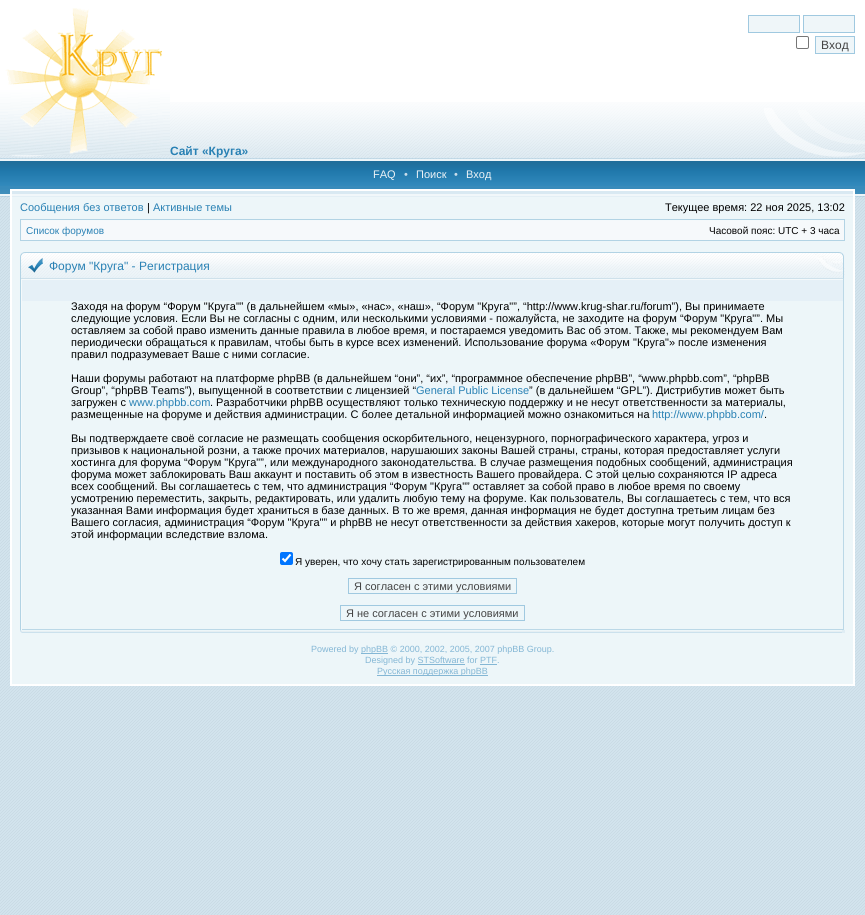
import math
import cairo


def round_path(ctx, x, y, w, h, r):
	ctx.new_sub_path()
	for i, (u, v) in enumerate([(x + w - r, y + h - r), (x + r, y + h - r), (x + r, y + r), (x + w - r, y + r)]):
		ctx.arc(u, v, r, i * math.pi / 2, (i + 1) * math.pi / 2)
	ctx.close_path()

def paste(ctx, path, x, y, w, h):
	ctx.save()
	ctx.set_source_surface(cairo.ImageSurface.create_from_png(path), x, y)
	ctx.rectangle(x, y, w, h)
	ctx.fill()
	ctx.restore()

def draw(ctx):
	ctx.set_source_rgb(1, 1, 1)
	ctx.paint()
	paste(ctx, 'media/1.png', 0, 197, 865, 718)
	paste(ctx, 'media/2.png', 0, 102, 865, 56)
	paste(ctx, 'media/3.png', 10, 155, 35, 2)
	paste(ctx, 'media/4.png', 764, 108, 101, 49)
	paste(ctx, 'media/5.png', 0, 8, 170, 147)
	ctx.set_source_rgb(0.937, 0.961, 0.973)
	ctx.rectangle(748.5, 15.5, 51, 17)
	ctx.fill_preserve()
	ctx.set_source_rgb(0.627, 0.788, 0.878)
	ctx.set_line_width(1)
	ctx.stroke()
	ctx.set_source_rgb(0.937, 0.961, 0.973)
	ctx.rectangle(803.5, 15.5, 51, 17)
	ctx.fill_preserve()
	ctx.set_source_rgb(0.627, 0.788, 0.878)
	ctx.stroke()
	round_path(ctx, 796.5, 36.5, 12, 12, 1.5)
	ctx.set_source_rgb(0.463, 0.463, 0.463)
	ctx.stroke()
	ctx.set_source_rgb(0.937, 0.961, 0.973)
	ctx.rectangle(815.5, 36.5, 39, 17)
	ctx.fill_preserve()
	ctx.set_source_rgb(0.627, 0.788, 0.878)
	ctx.stroke()
	ctx.select_font_face('Liberation Sans')
	ctx.set_font_size(12)
	ctx.set_source_rgb(0.267, 0.267, 0.267)
	ctx.move_to(821, 49)
	ctx.show_text('Вход')
	ctx.select_font_face('Liberation Sans', cairo.FONT_SLANT_NORMAL, cairo.FONT_WEIGHT_BOLD)
	ctx.set_source_rgb(0.161, 0.506, 0.706)
	ctx.move_to(170, 155)
	ctx.show_text('Сайт «Круга»')
	ctx.set_source_rgb(0.22, 0.545, 0.733)
	ctx.rectangle(0, 186, 865, 3)
	ctx.fill()
	paste(ctx, 'media/6.png', 0, 158, 865, 28)
	ctx.select_font_face('Liberation Sans')
	ctx.set_font_size(11)
	ctx.set_source_rgb(0.925, 0.949, 0.961)
	ctx.move_to(373, 178)
	ctx.show_text('FAQ')
	ctx.set_source_rgb(0.792, 0.871, 0.918)
	ctx.move_to(404, 178)
	ctx.show_text('•')
	ctx.set_source_rgb(0.925, 0.949, 0.961)
	ctx.move_to(416, 178)
	ctx.show_text('Поиск')
	ctx.set_source_rgb(0.792, 0.871, 0.918)
	ctx.move_to(454, 178)
	ctx.show_text('•')
	ctx.set_source_rgb(0.925, 0.949, 0.961)
	ctx.move_to(466, 178)
	ctx.show_text('Вход')
	paste(ctx, 'media/7.png', 0, 189, 865, 8)
	ctx.rectangle(11, 190, 843, 495)
	ctx.set_source_rgb(1, 1, 1)
	ctx.set_line_width(2)
	ctx.stroke()
	ctx.set_source_rgb(0.929, 0.961, 0.976)
	ctx.rectangle(12, 197, 841, 487)
	ctx.fill()
	paste(ctx, 'media/8.png', 12, 191, 841, 6)
	ctx.set_source_rgb(0.161, 0.506, 0.706)
	ctx.move_to(20, 211)
	ctx.show_text('Сообщения без ответов')
	ctx.set_source_rgb(0, 0, 0)
	ctx.move_to(147, 211)
	ctx.show_text('|')
	ctx.set_source_rgb(0.161, 0.506, 0.706)
	ctx.move_to(153, 211)
	ctx.show_text('Активные темы')
	ctx.set_source_rgb(0, 0, 0)
	ctx.move_to(665, 211)
	ctx.show_text('Текущее время: 22 ноя 2025, 13:02')
	ctx.rectangle(20.5, 219.5, 824, 21)
	ctx.set_source_rgb(0.698, 0.827, 0.894)
	ctx.set_line_width(1)
	ctx.stroke()
	ctx.set_source_rgb(0.961, 0.976, 0.984)
	ctx.rectangle(22, 221, 822, 19)
	ctx.fill()
	ctx.set_source_rgb(0.957, 0.976, 0.984)
	ctx.rectangle(21, 220, 823, 1)
	ctx.rectangle(21, 220, 1, 20)
	ctx.fill()
	ctx.set_font_size(10)
	ctx.set_source_rgb(0.161, 0.506, 0.706)
	ctx.move_to(26, 234)
	ctx.show_text('Список форумов')
	ctx.set_source_rgb(0, 0, 0)
	ctx.move_to(709, 234)
	ctx.show_text('Часовой пояс: UTC + 3 часа')
	paste(ctx, 'media/9.png', 22, 631, 820, 2)
	paste(ctx, 'media/10.png', 21, 252, 824, 27)
	paste(ctx, 'media/11.png', 20, 252, 23, 27)
	paste(ctx, 'media/12.png', 815, 252, 30, 27)
	ctx.set_font_size(12)
	ctx.set_source_rgb(0.161, 0.506, 0.706)
	ctx.move_to(49, 270)
	ctx.show_text('Форум "Круга" - Регистрация')
	ctx.set_source_rgb(0.698, 0.827, 0.894)
	ctx.rectangle(20, 279, 1, 351)
	ctx.fill()
	ctx.set_source_rgb(0.898, 0.941, 0.965)
	ctx.rectangle(22, 280, 821, 21)
	ctx.fill()
	ctx.set_source_rgb(0.957, 0.976, 0.984)
	ctx.rectangle(21, 279, 823, 1)
	ctx.fill()
	ctx.set_source_rgb(0.733, 0.847, 0.906)
	ctx.rectangle(843, 279, 1, 351)
	ctx.rectangle(21, 629, 823, 1)
	ctx.fill()
	ctx.set_source_rgb(0.957, 0.976, 0.984)
	ctx.rectangle(21, 279, 1, 351)
	ctx.fill()
	ctx.set_font_size(11)
	ctx.set_source_rgb(0, 0, 0)
	for x, y, s in [
		(71, 310, 'Заходя на форум “Форум "Круга"” (в дальнейшем «мы», «нас», «наш», “Форум "Круга"”, “http://www.krug-shar.ru/forum”), Вы принимаете'),
		(71, 322, 'следующие условия. Если Вы не согласны с одним, или несколькими условиями - пожалуйста, не заходите на форум “Форум "Круга"”. Мы'),
		(71, 334, 'оставляем за собой право изменить данные правила в любое время, и постараемся уведомить Вас об этом. Также, мы рекомендуем Вам'),
		(71, 346, 'периодически обращаться к правилам, чтобы быть в курсе всех изменений. Использование форума «Форум "Круга"» после изменения'),
		(71, 358, 'правил подразумевает Ваше с ними согласие.'),
		(71, 382, 'Наши форумы работают на платформе phpBB (в дальнейшем “они”, “их”, “программное обеспечение phpBB”, “www.phpbb.com”, “phpBB'),
		(71, 394, 'Group”, “phpBB Teams”), выпущенной в соответствии с лицензией “'),
	]:
		ctx.move_to(x, y)
		ctx.show_text(s)
	ctx.set_source_rgb(0.161, 0.506, 0.706)
	ctx.move_to(416, 394)
	ctx.show_text('General Public License')
	ctx.set_source_rgb(0, 0, 0)
	ctx.move_to(529, 394)
	ctx.show_text('” (в дальнейшем “GPL”). Дистрибутив может быть')
	ctx.move_to(71, 406)
	ctx.show_text('загружен с')
	ctx.set_source_rgb(0.161, 0.506, 0.706)
	ctx.move_to(129, 406)
	ctx.show_text('www.phpbb.com')
	ctx.set_source_rgb(0, 0, 0)
	ctx.move_to(210, 406)
	ctx.show_text('. Разработчики phpBB осуществляют только техническую поддержку и не несут ответственности за материалы,')
	ctx.move_to(71, 418)
	ctx.show_text('размещенные на форуме и действия администрации. С более детальной информацией можно ознакомиться на')
	ctx.set_source_rgb(0.161, 0.506, 0.706)
	ctx.move_to(652, 418)
	ctx.show_text('http://www.phpbb.com/')
	ctx.set_source_rgb(0, 0, 0)
	for x, y, s in [
		(764, 418, '.'),
		(71, 442, 'Вы подтверждаете своё согласие не размещать сообщения оскорбительного, нецензурного, порнографического характера, угроз и'),
		(71, 454, 'призывов к национальной розни, а также прочих материалов, нарушаюших законы Вашей страны, страны, которая предоставляет услуги'),
		(71, 466, 'хостинга для форума “Форум "Круга"”, или международного законодательства. В случае размещения подобных сообщений, администрация'),
		(71, 478, 'форума может заблокировать Ваш аккаунт и поставить об этом в известность Вашего провайдера. С этой целью сохраняются IP адреса'),
		(71, 490, 'всех сообщений. Вы соглашаетесь с тем, что администрация “Форум "Круга"” оставляет за собой право в любое время по своему'),
		(71, 502, 'усмотрению переместить, закрыть, редактировать, или удалить любую тему на форуме. Как пользователь, Вы соглашаетесь с тем, что вся'),
		(71, 514, 'указанная Вами информация будет храниться в базе данных. В то же время, данная информация не будет доступна третьим лицам без'),
		(71, 526, 'Вашего согласия, администрация “Форум "Круга"” и phpBB не несут ответственности за действия хакеров, которые могут получить доступ к'),
		(71, 538, 'этой информации вследствие взлома.'),
	]:
		ctx.move_to(x, y)
		ctx.show_text(s)
	ctx.set_source_rgb(0, 0.459, 1)
	round_path(ctx, 280, 552, 13, 13, 2)
	ctx.fill()
	ctx.new_path()
	ctx.move_to(282.5, 558.5)
	ctx.line_to(285, 561)
	ctx.line_to(290.5, 554.5)
	ctx.set_source_rgb(1, 1, 1)
	ctx.set_line_width(2.1)
	ctx.stroke()
	ctx.set_font_size(10)
	ctx.set_source_rgb(0, 0, 0)
	ctx.move_to(295, 565)
	ctx.show_text('Я уверен, что хочу стать зарегистрированным пользователем')
	ctx.rectangle(348.5, 578.5, 168, 15)
	ctx.set_source_rgb(0.627, 0.788, 0.878)
	ctx.set_line_width(1)
	ctx.stroke()
	ctx.set_font_size(11)
	ctx.set_source_rgb(0.267, 0.267, 0.267)
	ctx.move_to(354, 590)
	ctx.show_text('Я согласен с этими условиями')
	ctx.rectangle(340.5, 605.5, 184, 15)
	ctx.set_source_rgb(0.627, 0.788, 0.878)
	ctx.stroke()
	ctx.set_source_rgb(0.267, 0.267, 0.267)
	ctx.move_to(346, 617)
	ctx.show_text('Я не согласен с этими условиями')
	paste(ctx, 'media/13.png', 20, 630, 2, 3)
	ctx.set_source_rgb(0.875, 0.929, 0.957)
	ctx.rectangle(842, 630, 3, 3)
	ctx.fill()
	ctx.set_font_size(9)
	ctx.set_source_rgb(0.518, 0.718, 0.835)
	ctx.move_to(311, 652)
	ctx.show_text('Powered by')
	ctx.rectangle(361, 653, 27, 1)
	ctx.fill()
	ctx.move_to(361, 652)
	ctx.show_text('phpBB © 2000, 2002, 2005, 2007 phpBB Group.')
	ctx.move_to(365, 663)
	ctx.show_text('Designed by STSoftware for PTF.')
	ctx.rectangle(418, 664, 47, 1)
	ctx.rectangle(480, 664, 17, 1)
	ctx.rectangle(377, 675, 111, 1)
	ctx.fill()
	ctx.move_to(377, 674)
	ctx.show_text('Русская поддержка phpBB')


surface = cairo.ImageSurface(cairo.FORMAT_RGB24, 865, 915)
ctx = cairo.Context(surface)
options = cairo.FontOptions()
options.set_hint_metrics(cairo.HINT_METRICS_OFF)
options.set_hint_style(cairo.HINT_STYLE_NONE)
ctx.set_font_options(options)
ctx.set_miter_limit(4)
draw(ctx)
surface.write_to_png('image.png')
